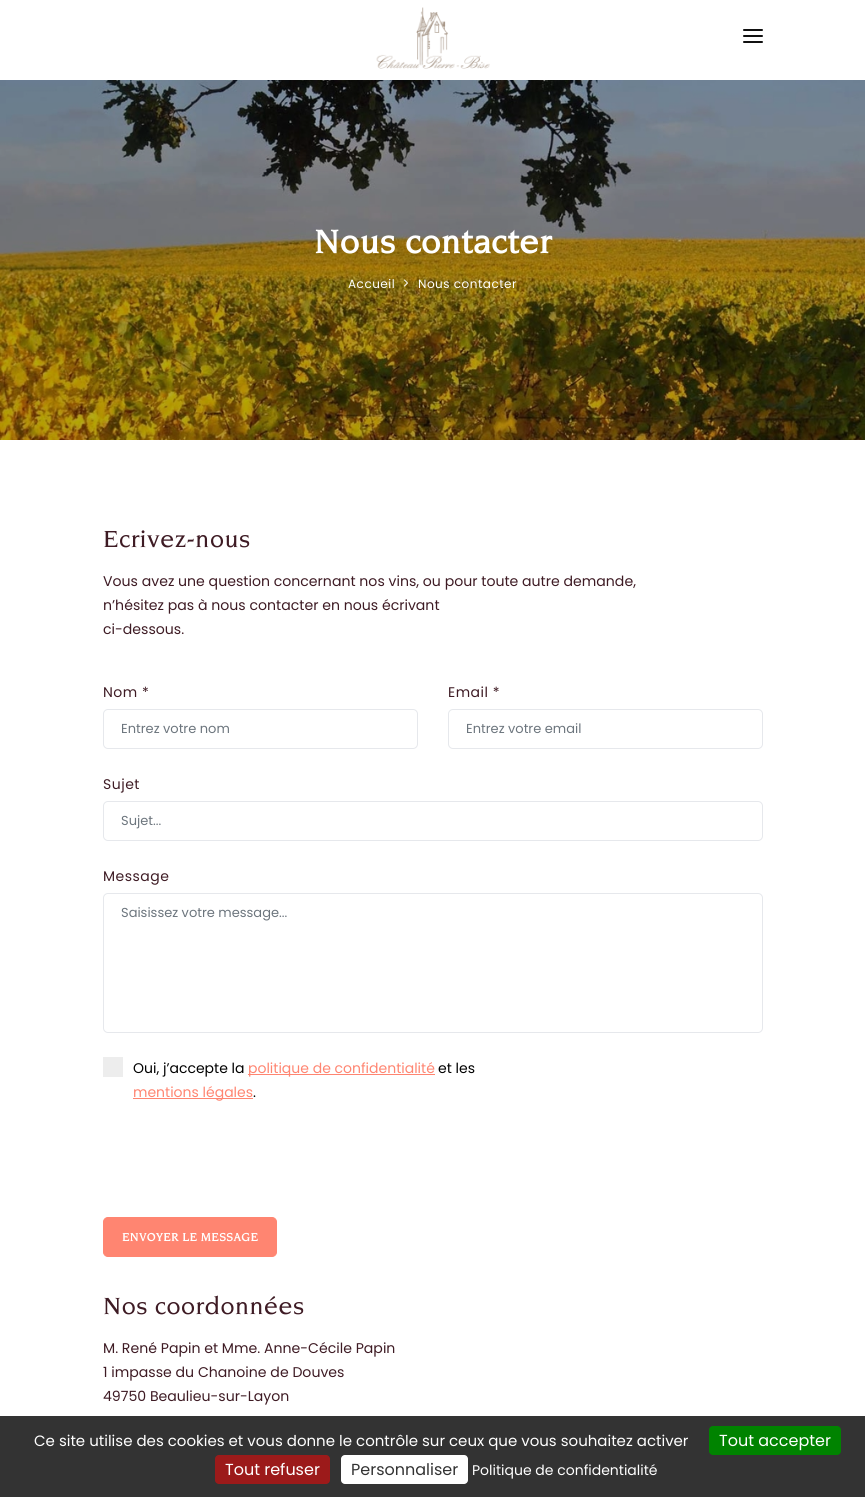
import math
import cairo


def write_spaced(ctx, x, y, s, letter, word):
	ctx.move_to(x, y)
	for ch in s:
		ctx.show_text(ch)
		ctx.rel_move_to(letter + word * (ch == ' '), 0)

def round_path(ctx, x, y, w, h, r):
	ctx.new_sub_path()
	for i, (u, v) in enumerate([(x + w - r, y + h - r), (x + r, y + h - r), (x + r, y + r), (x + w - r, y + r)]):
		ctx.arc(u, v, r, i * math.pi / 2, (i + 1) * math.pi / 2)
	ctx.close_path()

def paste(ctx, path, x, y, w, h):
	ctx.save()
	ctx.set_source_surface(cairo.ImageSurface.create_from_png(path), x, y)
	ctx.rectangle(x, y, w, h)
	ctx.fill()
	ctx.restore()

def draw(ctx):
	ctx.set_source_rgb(1, 1, 1)
	ctx.paint()
	paste(ctx, 'media/1.png', 376, 7, 114, 62)
	ctx.set_source_rgb(0.067, 0.067, 0.067)
	round_path(ctx, 743, 35, 20, 2, 1)
	ctx.fill()
	round_path(ctx, 743, 29, 20, 2, 1)
	ctx.fill()
	round_path(ctx, 743, 41, 20, 2, 1)
	ctx.fill()
	paste(ctx, 'media/2.png', 0, 80, 865, 360)
	ctx.select_font_face('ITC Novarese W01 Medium', cairo.FONT_SLANT_NORMAL, cairo.FONT_WEIGHT_BOLD)
	ctx.set_font_size(35)
	ctx.set_source_rgb(1, 1, 1)
	write_spaced(ctx, 314, 253, 'Nous contacter', 0.5, 0)
	ctx.select_font_face('Poppins')
	ctx.set_font_size(12)
	write_spaced(ctx, 348, 288, 'Accueil', 0.5, 0)
	paste(ctx, 'media/3.png', 404, 279, 4, 8)
	write_spaced(ctx, 418, 288, 'Nous contacter', 0.5, 0)
	ctx.select_font_face('ITC Novarese W01 Medium Medium')
	ctx.set_font_size(25.25)
	ctx.set_source_rgb(0.243, 0.106, 0.141)
	write_spaced(ctx, 103, 547, 'Ecrivez-nous', 0.5, 0)
	ctx.select_font_face('Poppins')
	ctx.set_font_size(14.1)
	for x, y, s in [
		(103, 586, 'Vous avez une question concernant nos vins, ou pour toute autre demande,'),
		(103, 610, 'n’hésitez pas à nous contacter en nous écrivant'),
		(103, 634, 'ci-dessous.'),
	]:
		ctx.move_to(x, y)
		ctx.show_text(s)
	ctx.set_font_size(14)
	write_spaced(ctx, 103, 697, 'Nom *', 0.5, 0)
	round_path(ctx, 103.5, 709.5, 314, 39, 4.5)
	ctx.set_source_rgb(0.902, 0.91, 0.922)
	ctx.set_line_width(1)
	ctx.stroke()
	ctx.set_font_size(13)
	ctx.set_source_rgb(0.424, 0.459, 0.49)
	ctx.move_to(121, 733)
	ctx.show_text('Entrez votre nom')
	ctx.set_font_size(14)
	ctx.set_source_rgb(0.243, 0.106, 0.141)
	write_spaced(ctx, 448, 697, 'Email *', 0.5, 0)
	round_path(ctx, 448.5, 709.5, 314, 39, 4.5)
	ctx.set_source_rgb(0.902, 0.91, 0.922)
	ctx.stroke()
	ctx.set_font_size(13)
	ctx.set_source_rgb(0.424, 0.459, 0.49)
	ctx.move_to(466, 733)
	ctx.show_text('Entrez votre email')
	ctx.set_font_size(14)
	ctx.set_source_rgb(0.243, 0.106, 0.141)
	write_spaced(ctx, 103, 789, 'Sujet', 0.5, 0)
	round_path(ctx, 103.5, 801.5, 659, 39, 4.5)
	ctx.set_source_rgb(0.902, 0.91, 0.922)
	ctx.stroke()
	ctx.set_font_size(13)
	ctx.set_source_rgb(0.424, 0.459, 0.49)
	ctx.move_to(121, 825)
	ctx.show_text('Sujet...')
	ctx.set_font_size(14)
	ctx.set_source_rgb(0.243, 0.106, 0.141)
	write_spaced(ctx, 103, 881, 'Message', 0.5, 0)
	round_path(ctx, 103.5, 893.5, 659, 139, 4.5)
	ctx.set_source_rgb(0.902, 0.91, 0.922)
	ctx.stroke()
	ctx.set_font_size(13)
	ctx.set_source_rgb(0.424, 0.459, 0.49)
	ctx.move_to(121, 917)
	ctx.show_text('Saisissez votre message...')
	ctx.set_source_rgb(0.929, 0.929, 0.929)
	ctx.rectangle(103, 1057, 20, 20)
	ctx.fill()
	ctx.set_font_size(14)
	ctx.set_source_rgb(0, 0, 0)
	ctx.move_to(133, 1073)
	ctx.show_text('Oui, j’accepte la')
	ctx.set_source_rgb(1, 0.522, 0.443)
	ctx.rectangle(248, 1074, 187, 1)
	ctx.fill()
	ctx.move_to(248, 1073)
	ctx.show_text('politique de confidentialité')
	ctx.set_source_rgb(0, 0, 0)
	ctx.move_to(438, 1073)
	ctx.show_text('et les')
	ctx.set_source_rgb(1, 0.522, 0.443)
	ctx.rectangle(133, 1098, 120, 1)
	ctx.fill()
	ctx.move_to(133, 1097)
	ctx.show_text('mentions légales')
	ctx.set_source_rgb(0, 0, 0)
	ctx.move_to(253, 1097)
	ctx.show_text('.')
	ctx.set_source_rgb(1, 0.522, 0.443)
	round_path(ctx, 103.5, 1217.5, 173, 39, 4.5)
	ctx.fill_preserve()
	ctx.stroke()
	ctx.select_font_face('ITC Novarese W01 Medium', cairo.FONT_SLANT_NORMAL, cairo.FONT_WEIGHT_BOLD)
	ctx.set_font_size(12)
	ctx.set_source_rgb(1, 1, 1)
	write_spaced(ctx, 122, 1241, 'ENVOYER LE MESSAGE', 0.5, 0)
	ctx.select_font_face('ITC Novarese W01 Medium Medium')
	ctx.set_font_size(25.25)
	ctx.set_source_rgb(0.243, 0.106, 0.141)
	write_spaced(ctx, 103, 1314, 'Nos coordonnées', 0.5, 0)
	ctx.select_font_face('Poppins')
	ctx.set_font_size(14.1)
	for x, y, s in [
		(103, 1353, 'M. René Papin et Mme. Anne-Cécile Papin'),
		(103, 1377, '1 impasse du Chanoine de Douves'),
		(103, 1401, '49750 Beaulieu-sur-Layon'),
	]:
		ctx.move_to(x, y)
		ctx.show_text(s)
	ctx.set_source_rgb(0.2, 0.2, 0.2)
	ctx.rectangle(0, 1416, 865, 81)
	ctx.fill()
	ctx.set_font_size(15)
	ctx.set_source_rgb(1, 1, 1)
	ctx.move_to(34, 1446)
	ctx.show_text('Ce site utilise des cookies et vous donne le contrôle sur ceux que vous souhaitez activer')
	ctx.set_source_rgb(0, 0.514, 0)
	round_path(ctx, 709, 1426, 132, 29, 4)
	ctx.fill()
	ctx.set_font_size(16)
	ctx.set_source_rgb(1, 1, 1)
	ctx.move_to(719, 1446)
	ctx.show_text('Tout accepter')
	ctx.set_source_rgb(0.612, 0.102, 0.102)
	round_path(ctx, 215, 1455, 115, 29, 4)
	ctx.fill()
	ctx.set_source_rgb(1, 1, 1)
	ctx.move_to(225, 1475)
	ctx.show_text('Tout refuser')
	round_path(ctx, 341, 1455, 127, 29, 4)
	ctx.fill()
	ctx.set_source_rgb(0.2, 0.2, 0.2)
	ctx.move_to(351, 1475)
	ctx.show_text('Personnaliser')
	ctx.set_font_size(14)
	ctx.set_source_rgb(1, 1, 1)
	ctx.move_to(472, 1475)
	ctx.show_text('Politique de confidentialité')


surface = cairo.ImageSurface(cairo.FORMAT_RGB24, 865, 1497)
ctx = cairo.Context(surface)
options = cairo.FontOptions()
options.set_hint_metrics(cairo.HINT_METRICS_OFF)
options.set_hint_style(cairo.HINT_STYLE_NONE)
ctx.set_font_options(options)
ctx.set_miter_limit(4)
draw(ctx)
surface.write_to_png('image.png')
